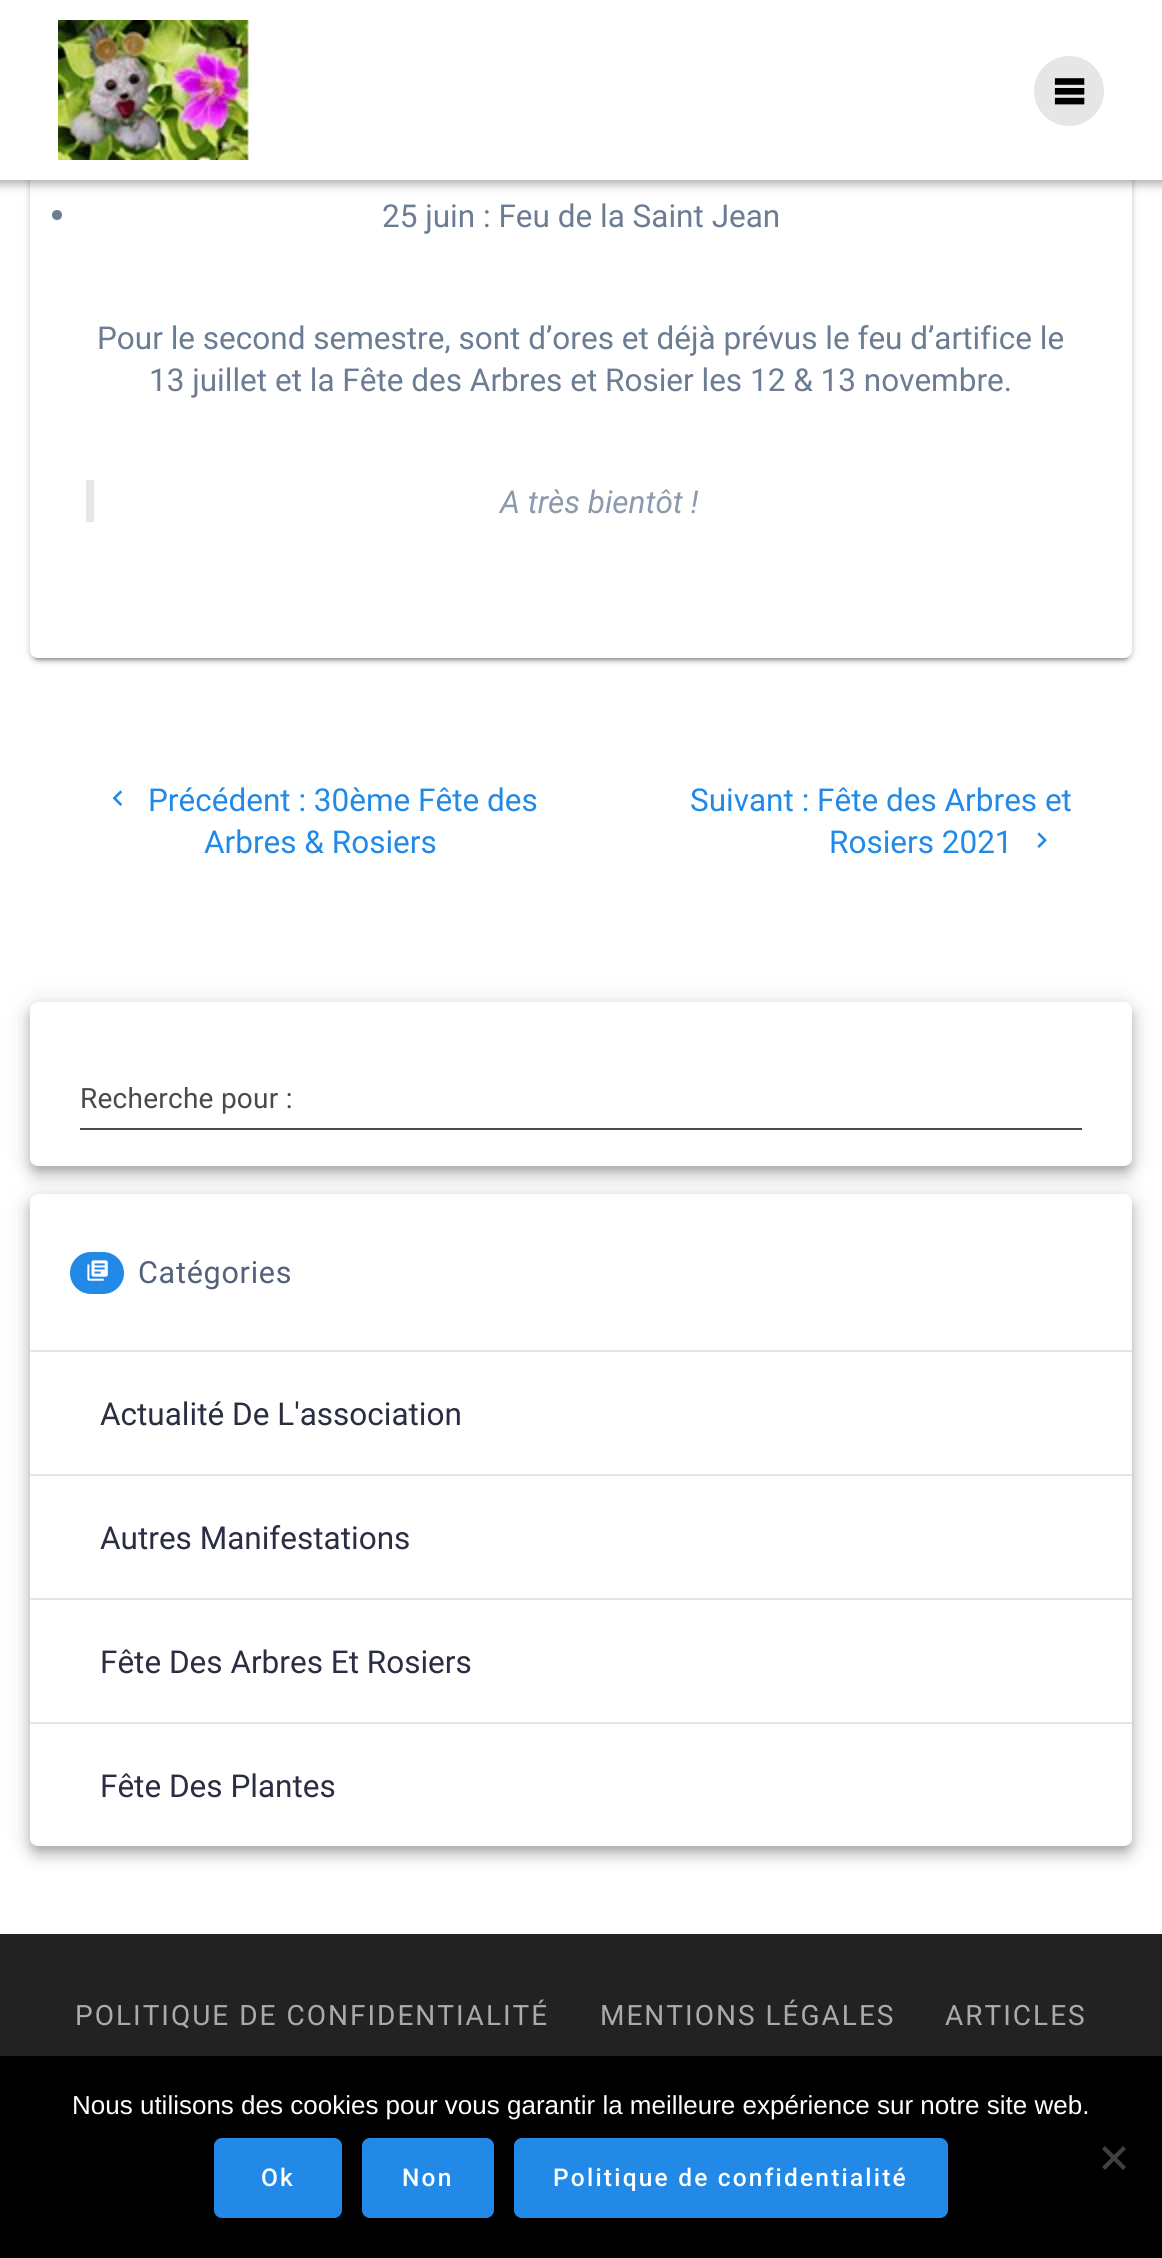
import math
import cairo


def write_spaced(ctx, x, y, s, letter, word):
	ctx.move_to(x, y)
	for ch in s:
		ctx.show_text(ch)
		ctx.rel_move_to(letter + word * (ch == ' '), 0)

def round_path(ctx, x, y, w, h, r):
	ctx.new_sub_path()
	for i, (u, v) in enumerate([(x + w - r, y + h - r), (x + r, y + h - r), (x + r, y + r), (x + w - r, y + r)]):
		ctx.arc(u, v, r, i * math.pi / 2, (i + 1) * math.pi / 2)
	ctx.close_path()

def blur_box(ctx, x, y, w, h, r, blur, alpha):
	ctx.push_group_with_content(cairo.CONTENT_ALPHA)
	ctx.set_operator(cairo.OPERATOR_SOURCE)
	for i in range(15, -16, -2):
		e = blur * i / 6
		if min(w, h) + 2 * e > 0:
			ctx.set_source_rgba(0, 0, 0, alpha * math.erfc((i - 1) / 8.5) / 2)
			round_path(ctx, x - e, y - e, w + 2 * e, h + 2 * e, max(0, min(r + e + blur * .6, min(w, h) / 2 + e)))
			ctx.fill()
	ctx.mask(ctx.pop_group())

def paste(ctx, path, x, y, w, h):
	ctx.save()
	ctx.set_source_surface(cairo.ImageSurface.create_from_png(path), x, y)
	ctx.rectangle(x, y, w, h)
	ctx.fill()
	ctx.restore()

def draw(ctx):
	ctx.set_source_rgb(0.133, 0.133, 0.133)
	ctx.paint()
	ctx.set_source_rgb(1, 1, 1)
	ctx.rectangle(0, 180, 1162, 1754)
	ctx.fill()
	ctx.set_source_rgb(0, 0, 0)
	blur_box(ctx, 30, -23, 1102, 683, 8, 5, 0.12)
	blur_box(ctx, 30, -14, 1102, 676, 8, 2, 0.14)
	blur_box(ctx, 34, -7, 1094, 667, 4, 1, 0.2)
	ctx.set_source_rgb(1, 1, 1)
	round_path(ctx, 30, -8, 1102, 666, 8)
	ctx.fill()
	ctx.set_source_rgb(0, 0, 0)
	blur_box(ctx, -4, -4, 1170, 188, 0, 5, 0.33)
	ctx.set_source_rgb(1, 1, 1)
	ctx.rectangle(0, 0, 1162, 180)
	ctx.fill()
	paste(ctx, 'media/1.png', 58, 20, 191, 140)
	ctx.set_source_rgb(0.902, 0.902, 0.902)
	ctx.arc(1069, 91, 35, 0, 2 * math.pi)
	ctx.fill()
	paste(ctx, 'media/2.png', 1054, 78, 31, 27)
	ctx.set_source_rgb(0.42, 0.486, 0.576)
	ctx.arc(57, 215, 5, 0, 2 * math.pi)
	ctx.fill()
	ctx.select_font_face('Roboto')
	ctx.set_font_size(31.5)
	for x, y, s in [
		(382, 227, '25 juin : Feu de la Saint Jean'),
		(97, 349, 'Pour le second semestre, sont d’ores et déjà prévus le feu d’artifice le'),
		(149, 391, '13 juillet et la Fête des Arbres et Rosier les 12 & 13 novembre.'),
	]:
		ctx.move_to(x, y)
		ctx.show_text(s)
	ctx.set_source_rgb(0.902, 0.902, 0.902)
	ctx.rectangle(86, 480, 8, 42)
	ctx.fill()
	ctx.select_font_face('Roboto', cairo.FONT_SLANT_ITALIC)
	ctx.set_source_rgb(0.553, 0.6, 0.682)
	ctx.move_to(500, 513)
	ctx.show_text('A très bientôt !')
	paste(ctx, 'media/3.png', 112, 790, 11, 16)
	ctx.select_font_face('Roboto')
	ctx.set_source_rgb(0.133, 0.541, 0.902)
	for x, y, s in [
		(148, 811, 'Précédent : 30ème Fête des'),
		(204, 853, 'Arbres & Rosiers'),
		(690, 811, 'Suivant : Fête des Arbres et'),
		(829, 853, 'Rosiers 2021'),
	]:
		ctx.move_to(x, y)
		ctx.show_text(s)
	paste(ctx, 'media/4.png', 1037, 832, 10, 16)
	ctx.set_source_rgb(0, 0, 0)
	blur_box(ctx, 30, 1004, 1102, 164, 8, 14, 0.12)
	blur_box(ctx, 30, 1012, 1102, 164, 8, 8, 0.14)
	blur_box(ctx, 32, 1010, 1098, 160, 6, 5, 0.2)
	ctx.set_source_rgb(1, 1, 1)
	round_path(ctx, 30, 1002, 1102, 164, 8)
	ctx.fill()
	ctx.set_font_size(28)
	ctx.set_source_rgb(0.29, 0.29, 0.29)
	write_spaced(ctx, 80, 1108, 'Recherche pour :', 0.25, 0)
	ctx.rectangle(80, 1128, 1002, 2)
	ctx.fill()
	ctx.set_source_rgb(0, 0, 0)
	blur_box(ctx, 30, 1196, 1102, 652, 8, 14, 0.12)
	blur_box(ctx, 30, 1204, 1102, 652, 8, 8, 0.14)
	blur_box(ctx, 32, 1202, 1098, 648, 6, 5, 0.2)
	ctx.set_source_rgb(1, 1, 1)
	round_path(ctx, 30, 1194, 1102, 652, 8)
	ctx.fill()
	ctx.set_source_rgb(0.902, 0.902, 0.902)
	ctx.rectangle(30, 1350, 1102, 2)
	ctx.fill()
	ctx.set_source_rgb(0.133, 0.541, 0.902)
	round_path(ctx, 70, 1252, 54, 42, 21)
	ctx.fill()
	paste(ctx, 'media/5.png', 87, 1260, 21, 21)
	ctx.set_font_size(30.5)
	ctx.set_source_rgb(0.329, 0.38, 0.478)
	write_spaced(ctx, 138, 1283, 'Catégories', 0.75, 0)
	ctx.set_font_size(31.5)
	ctx.set_source_rgb(0.169, 0.176, 0.259)
	ctx.move_to(100, 1425)
	ctx.show_text('Actualité De L\'association')
	ctx.set_source_rgb(0.902, 0.902, 0.902)
	ctx.rectangle(30, 1474, 1102, 2)
	ctx.fill()
	ctx.set_source_rgb(0.169, 0.176, 0.259)
	ctx.move_to(100, 1549)
	ctx.show_text('Autres Manifestations')
	ctx.set_source_rgb(0.902, 0.902, 0.902)
	ctx.rectangle(30, 1598, 1102, 2)
	ctx.fill()
	ctx.set_source_rgb(0.169, 0.176, 0.259)
	ctx.move_to(100, 1673)
	ctx.show_text('Fête Des Arbres Et Rosiers')
	ctx.set_source_rgb(0.902, 0.902, 0.902)
	ctx.rectangle(30, 1722, 1102, 2)
	ctx.fill()
	ctx.set_source_rgb(0.169, 0.176, 0.259)
	ctx.move_to(100, 1797)
	ctx.show_text('Fête Des Plantes')
	ctx.set_font_size(28)
	ctx.set_source_rgb(0.667, 0.667, 0.667)
	for x, y, s in [
		(75, 2025, 'POLITIQUE DE CONFIDENTIALITÉ'),
		(600, 2025, 'MENTIONS LÉGALES'),
		(945, 2025, 'ARTICLES'),
	]:
		write_spaced(ctx, x, y, s, 2, 0)
	ctx.set_source_rgb(0, 0, 0)
	ctx.rectangle(0, 2056, 1162, 202)
	ctx.fill()
	ctx.select_font_face('Liberation Sans')
	ctx.set_font_size(26)
	ctx.set_source_rgb(1, 1, 1)
	ctx.move_to(72, 2114)
	ctx.show_text('Nous utilisons des cookies pour vous garantir la meilleure expérience sur notre site web.')
	ctx.set_source_rgb(0.251, 0.251, 0.251)
	ctx.new_path()
	ctx.move_to(1123, 2146)
	ctx.line_to(1126, 2149)
	ctx.line_to(1105, 2170)
	ctx.line_to(1102, 2167)
	ctx.close_path()
	ctx.fill()
	ctx.new_path()
	ctx.move_to(1102, 2149)
	ctx.line_to(1105, 2146)
	ctx.line_to(1126, 2167)
	ctx.line_to(1123, 2170)
	ctx.close_path()
	ctx.fill()
	ctx.set_source_rgb(0.133, 0.541, 0.902)
	round_path(ctx, 214, 2138, 128, 80, 8)
	ctx.fill()
	ctx.select_font_face('Roboto Medium')
	ctx.set_font_size(24.5)
	ctx.set_source_rgb(1, 1, 1)
	write_spaced(ctx, 261, 2186, 'Ok', 2.2, 0)
	ctx.set_source_rgb(0.133, 0.541, 0.902)
	round_path(ctx, 362, 2138, 132, 80, 8)
	ctx.fill()
	ctx.set_source_rgb(1, 1, 1)
	write_spaced(ctx, 402, 2186, 'Non', 2.2, 0)
	ctx.set_source_rgb(0.133, 0.541, 0.902)
	round_path(ctx, 514, 2138, 434, 80, 8)
	ctx.fill()
	ctx.set_source_rgb(1, 1, 1)
	write_spaced(ctx, 553, 2186, 'Politique de confidentialité', 2.2, 0)


surface = cairo.ImageSurface(cairo.FORMAT_RGB24, 1162, 2258)
ctx = cairo.Context(surface)
options = cairo.FontOptions()
options.set_hint_metrics(cairo.HINT_METRICS_OFF)
options.set_hint_style(cairo.HINT_STYLE_NONE)
ctx.set_font_options(options)
ctx.set_miter_limit(4)
draw(ctx)
surface.write_to_png('image.png')
